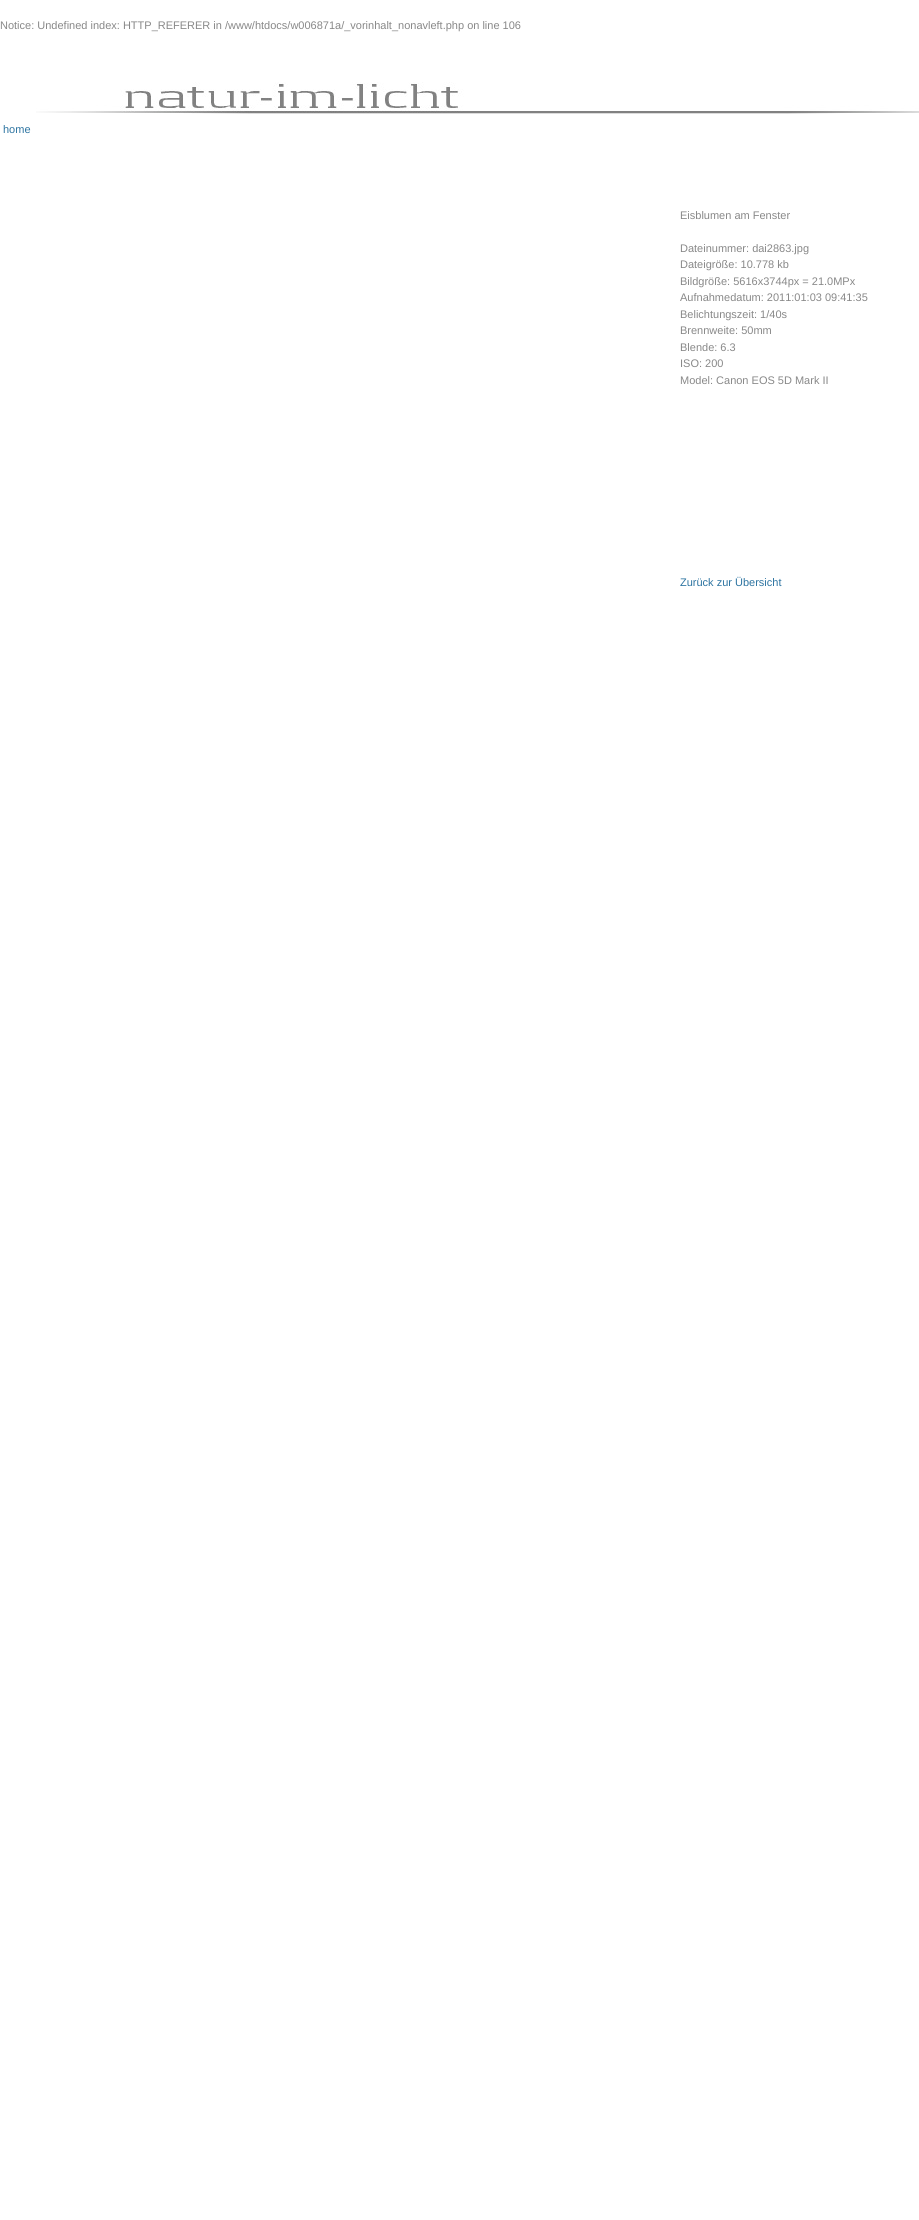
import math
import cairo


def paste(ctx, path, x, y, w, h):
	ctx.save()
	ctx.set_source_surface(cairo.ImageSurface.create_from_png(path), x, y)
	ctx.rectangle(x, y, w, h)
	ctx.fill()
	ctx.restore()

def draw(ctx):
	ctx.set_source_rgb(1, 1, 1)
	ctx.paint()
	ctx.select_font_face('Liberation Sans')
	ctx.set_font_size(11)
	ctx.set_source_rgb(0.533, 0.533, 0.533)
	ctx.move_to(0, 29)
	ctx.show_text('Notice: Undefined index: HTTP_REFERER in /www/htdocs/w006871a/_vorinhalt_nonavleft.php on line 106')
	paste(ctx, 'media/1.png', 36, 82, 883, 32)
	ctx.set_source_rgb(0.176, 0.455, 0.631)
	ctx.move_to(3, 133)
	ctx.show_text('home')
	ctx.set_source_rgb(0.533, 0.533, 0.533)
	for x, y, s in [
		(680, 219, 'Eisblumen am Fenster'),
		(680, 252, 'Dateinummer: dai2863.jpg'),
		(680, 268, 'Dateigröße: 10.778 kb'),
		(680, 285, 'Bildgröße: 5616x3744px = 21.0MPx'),
		(680, 301, 'Aufnahmedatum: 2011:01:03 09:41:35'),
		(680, 318, 'Belichtungszeit: 1/40s'),
		(680, 334, 'Brennweite: 50mm'),
		(680, 351, 'Blende: 6.3'),
		(680, 367, 'ISO: 200'),
		(680, 384, 'Model: Canon EOS 5D Mark II'),
	]:
		ctx.move_to(x, y)
		ctx.show_text(s)
	ctx.set_source_rgb(0.176, 0.455, 0.631)
	ctx.move_to(680, 586)
	ctx.show_text('Zurück zur Übersicht')


surface = cairo.ImageSurface(cairo.FORMAT_RGB24, 919, 2220)
ctx = cairo.Context(surface)
options = cairo.FontOptions()
options.set_hint_metrics(cairo.HINT_METRICS_OFF)
options.set_hint_style(cairo.HINT_STYLE_NONE)
ctx.set_font_options(options)
ctx.set_miter_limit(4)
draw(ctx)
surface.write_to_png('image.png')
